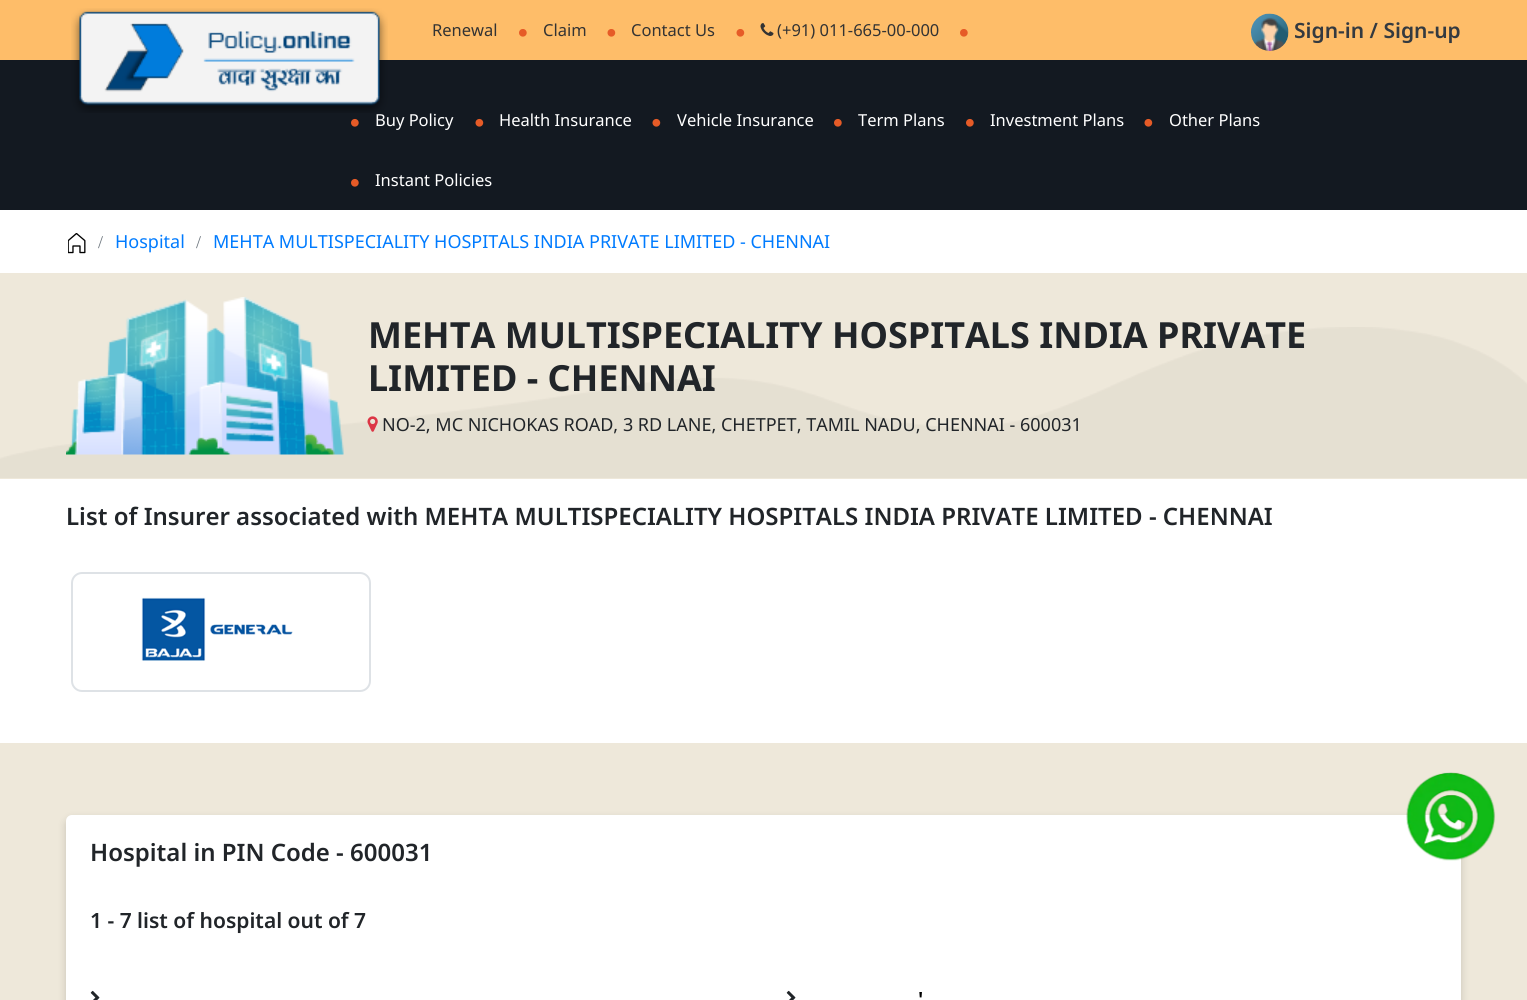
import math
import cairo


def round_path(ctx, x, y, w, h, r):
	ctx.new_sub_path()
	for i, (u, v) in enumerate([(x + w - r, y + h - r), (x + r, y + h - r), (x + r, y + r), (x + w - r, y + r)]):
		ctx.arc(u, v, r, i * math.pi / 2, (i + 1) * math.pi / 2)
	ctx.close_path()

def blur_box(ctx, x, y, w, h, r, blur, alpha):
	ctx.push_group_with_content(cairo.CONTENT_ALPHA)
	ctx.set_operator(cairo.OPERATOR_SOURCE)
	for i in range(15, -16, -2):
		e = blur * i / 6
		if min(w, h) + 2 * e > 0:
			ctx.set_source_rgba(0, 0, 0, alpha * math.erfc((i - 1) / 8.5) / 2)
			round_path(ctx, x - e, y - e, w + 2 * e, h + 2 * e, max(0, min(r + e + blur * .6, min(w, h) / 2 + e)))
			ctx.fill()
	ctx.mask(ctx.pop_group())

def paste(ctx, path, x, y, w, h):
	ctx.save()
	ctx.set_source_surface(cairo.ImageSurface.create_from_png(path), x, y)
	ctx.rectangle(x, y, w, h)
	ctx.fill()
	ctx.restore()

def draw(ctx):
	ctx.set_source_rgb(1, 1, 1)
	ctx.paint()
	ctx.set_source_rgb(0.996, 0.741, 0.412)
	ctx.rectangle(0, 0, 1527, 60)
	ctx.fill()
	ctx.select_font_face('Noto Sans')
	ctx.set_font_size(16.5)
	ctx.set_source_rgb(0.2, 0.2, 0.2)
	ctx.move_to(432, 36)
	ctx.show_text('Renewal')
	paste(ctx, 'media/1.png', 519, 29, 8, 8)
	ctx.move_to(543, 36)
	ctx.show_text('Claim')
	paste(ctx, 'media/2.png', 607, 29, 9, 8)
	ctx.move_to(631, 36)
	ctx.show_text('Contact Us')
	paste(ctx, 'media/2.png', 736, 29, 9, 8)
	paste(ctx, 'media/3.png', 760, 23, 14, 13)
	ctx.move_to(777, 36)
	ctx.show_text('(+91) 011-665-00-000')
	paste(ctx, 'media/1.png', 960, 29, 8, 8)
	paste(ctx, 'media/4.png', 1251, 13, 38, 38)
	ctx.select_font_face('Noto Sans SemiBold')
	ctx.set_font_size(21)
	ctx.set_source_rgb(0.204, 0.227, 0.251)
	ctx.move_to(1294, 38)
	ctx.show_text('Sign-in / Sign-up')
	ctx.set_source_rgb(0.075, 0.098, 0.129)
	ctx.rectangle(0, 60, 1527, 150)
	ctx.fill()
	paste(ctx, 'media/5.png', 71, 8, 317, 105)
	paste(ctx, 'media/6.png', 351, 118, 8, 9)
	ctx.select_font_face('Noto Sans')
	ctx.set_font_size(16.5)
	ctx.set_source_rgb(1, 1, 1)
	ctx.move_to(375, 126)
	ctx.show_text('Buy Policy')
	paste(ctx, 'media/7.png', 475, 118, 9, 9)
	ctx.move_to(499, 126)
	ctx.show_text('Health Insurance')
	paste(ctx, 'media/7.png', 652, 118, 9, 9)
	ctx.move_to(677, 126)
	ctx.show_text('Vehicle Insurance')
	paste(ctx, 'media/6.png', 834, 118, 8, 9)
	ctx.move_to(858, 126)
	ctx.show_text('Term Plans')
	paste(ctx, 'media/6.png', 966, 118, 8, 9)
	ctx.move_to(990, 126)
	ctx.show_text('Investment Plans')
	paste(ctx, 'media/7.png', 1144, 118, 9, 9)
	ctx.move_to(1169, 126)
	ctx.show_text('Other Plans')
	paste(ctx, 'media/6.png', 351, 178, 8, 9)
	ctx.move_to(375, 186)
	ctx.show_text('Instant Policies')
	paste(ctx, 'media/8.png', 68, 233, 18, 21)
	ctx.select_font_face('Liberation Serif')
	ctx.set_font_size(18)
	ctx.set_source_rgb(0.424, 0.459, 0.49)
	ctx.move_to(98, 248)
	ctx.show_text('/')
	ctx.select_font_face('Noto Sans')
	ctx.set_source_rgb(0, 0.482, 1)
	ctx.move_to(115, 248)
	ctx.show_text('Hospital')
	ctx.select_font_face('Liberation Serif')
	ctx.set_source_rgb(0.424, 0.459, 0.49)
	ctx.move_to(196, 248)
	ctx.show_text('/')
	ctx.select_font_face('Noto Sans')
	ctx.set_source_rgb(0, 0.482, 1)
	ctx.move_to(213, 248)
	ctx.show_text('MEHTA MULTISPECIALITY HOSPITALS INDIA PRIVATE LIMITED - CHENNAI')
	ctx.set_source_rgb(0.933, 0.91, 0.855)
	ctx.rectangle(0, 273, 1527, 206)
	ctx.fill()
	paste(ctx, 'media/9.png', 0, 327, 1527, 151)
	paste(ctx, 'media/10.png', 66, 297, 278, 158)
	ctx.select_font_face('Noto Sans', cairo.FONT_SLANT_NORMAL, cairo.FONT_WEIGHT_BOLD)
	ctx.set_font_size(36)
	ctx.set_source_rgb(0.129, 0.145, 0.161)
	ctx.move_to(368, 348)
	ctx.show_text('MEHTA MULTISPECIALITY HOSPITALS INDIA PRIVATE')
	ctx.move_to(368, 391)
	ctx.show_text('LIMITED - CHENNAI')
	paste(ctx, 'media/11.png', 367, 416, 11, 16)
	ctx.select_font_face('Noto Sans')
	ctx.set_font_size(18)
	ctx.move_to(382, 431)
	ctx.show_text('NO-2, MC NICHOKAS ROAD, 3 RD LANE, CHETPET, TAMIL NADU, CHENNAI - 600031')
	ctx.select_font_face('Noto Sans SemiBold')
	ctx.set_font_size(24)
	ctx.move_to(66, 525)
	ctx.show_text('List of Insurer associated with MEHTA MULTISPECIALITY HOSPITALS INDIA PRIVATE LIMITED - CHENNAI')
	round_path(ctx, 72, 573, 298, 118, 10)
	ctx.set_source_rgb(0.871, 0.886, 0.902)
	ctx.stroke()
	paste(ctx, 'media/12.png', 141, 597, 152, 64)
	ctx.set_source_rgb(0.933, 0.91, 0.855)
	ctx.rectangle(0, 743, 1527, 257)
	ctx.fill()
	ctx.set_source_rgb(0, 0, 0)
	blur_box(ctx, 66, 819, 1395, 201, 6, 4.5, 0.16)
	ctx.set_source_rgb(1, 1, 1)
	round_path(ctx, 66, 815, 1395, 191, 6)
	ctx.fill()
	paste(ctx, 'media/13.png', 1406, 772, 90, 89)
	ctx.set_source_rgb(0.129, 0.145, 0.161)
	ctx.move_to(90, 861)
	ctx.show_text('Hospital in PIN Code - 600031')
	ctx.set_font_size(21)
	ctx.move_to(90, 928)
	ctx.show_text('1 - 7 list of hospital out of 7')
	paste(ctx, 'media/14.png', 90, 990, 10, 10)
	paste(ctx, 'media/14.png', 786, 990, 10, 10)
	ctx.set_source_rgb(0, 0, 0)
	ctx.move_to(918, 1007)
	ctx.show_text('\'')


surface = cairo.ImageSurface(cairo.FORMAT_RGB24, 1527, 1000)
ctx = cairo.Context(surface)
options = cairo.FontOptions()
options.set_hint_metrics(cairo.HINT_METRICS_OFF)
options.set_hint_style(cairo.HINT_STYLE_NONE)
ctx.set_font_options(options)
ctx.set_miter_limit(4)
draw(ctx)
surface.write_to_png('image.png')
